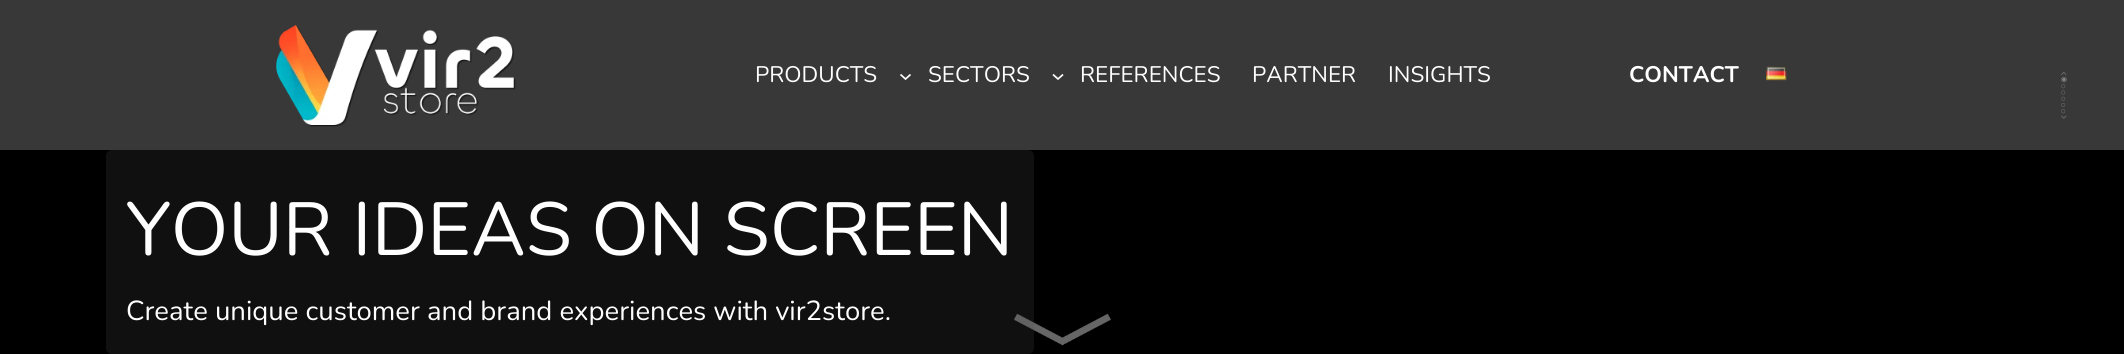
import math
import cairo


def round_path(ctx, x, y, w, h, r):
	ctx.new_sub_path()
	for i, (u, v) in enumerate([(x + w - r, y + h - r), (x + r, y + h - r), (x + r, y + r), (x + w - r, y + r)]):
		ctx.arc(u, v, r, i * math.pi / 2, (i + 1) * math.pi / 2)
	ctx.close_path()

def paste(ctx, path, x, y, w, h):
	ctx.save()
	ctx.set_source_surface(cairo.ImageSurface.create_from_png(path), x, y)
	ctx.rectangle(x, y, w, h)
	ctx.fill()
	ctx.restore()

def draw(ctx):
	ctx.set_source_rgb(0, 0, 0)
	ctx.paint()
	ctx.set_source_rgb(0.22, 0.22, 0.22)
	ctx.rectangle(0, 0, 2124, 150)
	ctx.fill()
	paste(ctx, 'media/1.png', 276, 25, 240, 102)
	ctx.select_font_face('Nunito')
	ctx.set_font_size(22.5)
	ctx.set_source_rgb(1, 1, 1)
	ctx.move_to(755, 82)
	ctx.show_text('PRODUCTS')
	ctx.new_path()
	ctx.move_to(900.5, 74.5)
	ctx.line_to(905.5, 79)
	ctx.line_to(910.5, 74.5)
	ctx.set_line_width(1.7)
	ctx.stroke()
	ctx.move_to(928, 82)
	ctx.show_text('SECTORS')
	ctx.new_path()
	ctx.move_to(1053, 74.5)
	ctx.line_to(1058, 79)
	ctx.line_to(1063, 74.5)
	ctx.stroke()
	for x, y, s in [
		(1080, 82, 'REFERENCES'),
		(1252, 82, 'PARTNER'),
		(1388, 82, 'INSIGHTS'),
	]:
		ctx.move_to(x, y)
		ctx.show_text(s)
	ctx.select_font_face('Nunito', cairo.FONT_SLANT_NORMAL, cairo.FONT_WEIGHT_BOLD)
	ctx.move_to(1629, 82)
	ctx.show_text('CONTACT')
	paste(ctx, 'media/2.png', 1766, 66, 21, 15)
	paste(ctx, 'media/10.png', 1014, 313, 97, 33)
	ctx.set_source_rgba(0.314, 0.314, 0.314, 0.2)
	round_path(ctx, 106, 150, 928, 204, 6)
	ctx.fill()
	ctx.select_font_face('Nunito')
	ctx.set_font_size(75)
	ctx.set_source_rgb(1, 1, 1)
	ctx.move_to(126, 255)
	ctx.show_text('YOUR IDEAS ON SCREEN')
	ctx.set_font_size(27.5)
	ctx.move_to(126, 320)
	ctx.show_text('Create unique customer and brand experiences with vir2store.')
	paste(ctx, 'media/3.png', 2061, 72, 6, 3)
	paste(ctx, 'media/4.png', 2061, 76, 6, 7)
	paste(ctx, 'media/5.png', 2061, 84, 5, 5)
	paste(ctx, 'media/6.png', 2061, 90, 5, 5)
	paste(ctx, 'media/7.png', 2061, 96, 5, 5)
	paste(ctx, 'media/8.png', 2061, 103, 5, 4)
	paste(ctx, 'media/5.png', 2061, 109, 5, 5)
	paste(ctx, 'media/9.png', 2061, 115, 6, 4)


surface = cairo.ImageSurface(cairo.FORMAT_RGB24, 2124, 354)
ctx = cairo.Context(surface)
options = cairo.FontOptions()
options.set_hint_metrics(cairo.HINT_METRICS_OFF)
options.set_hint_style(cairo.HINT_STYLE_NONE)
ctx.set_font_options(options)
ctx.set_miter_limit(4)
draw(ctx)
surface.write_to_png('image.png')
